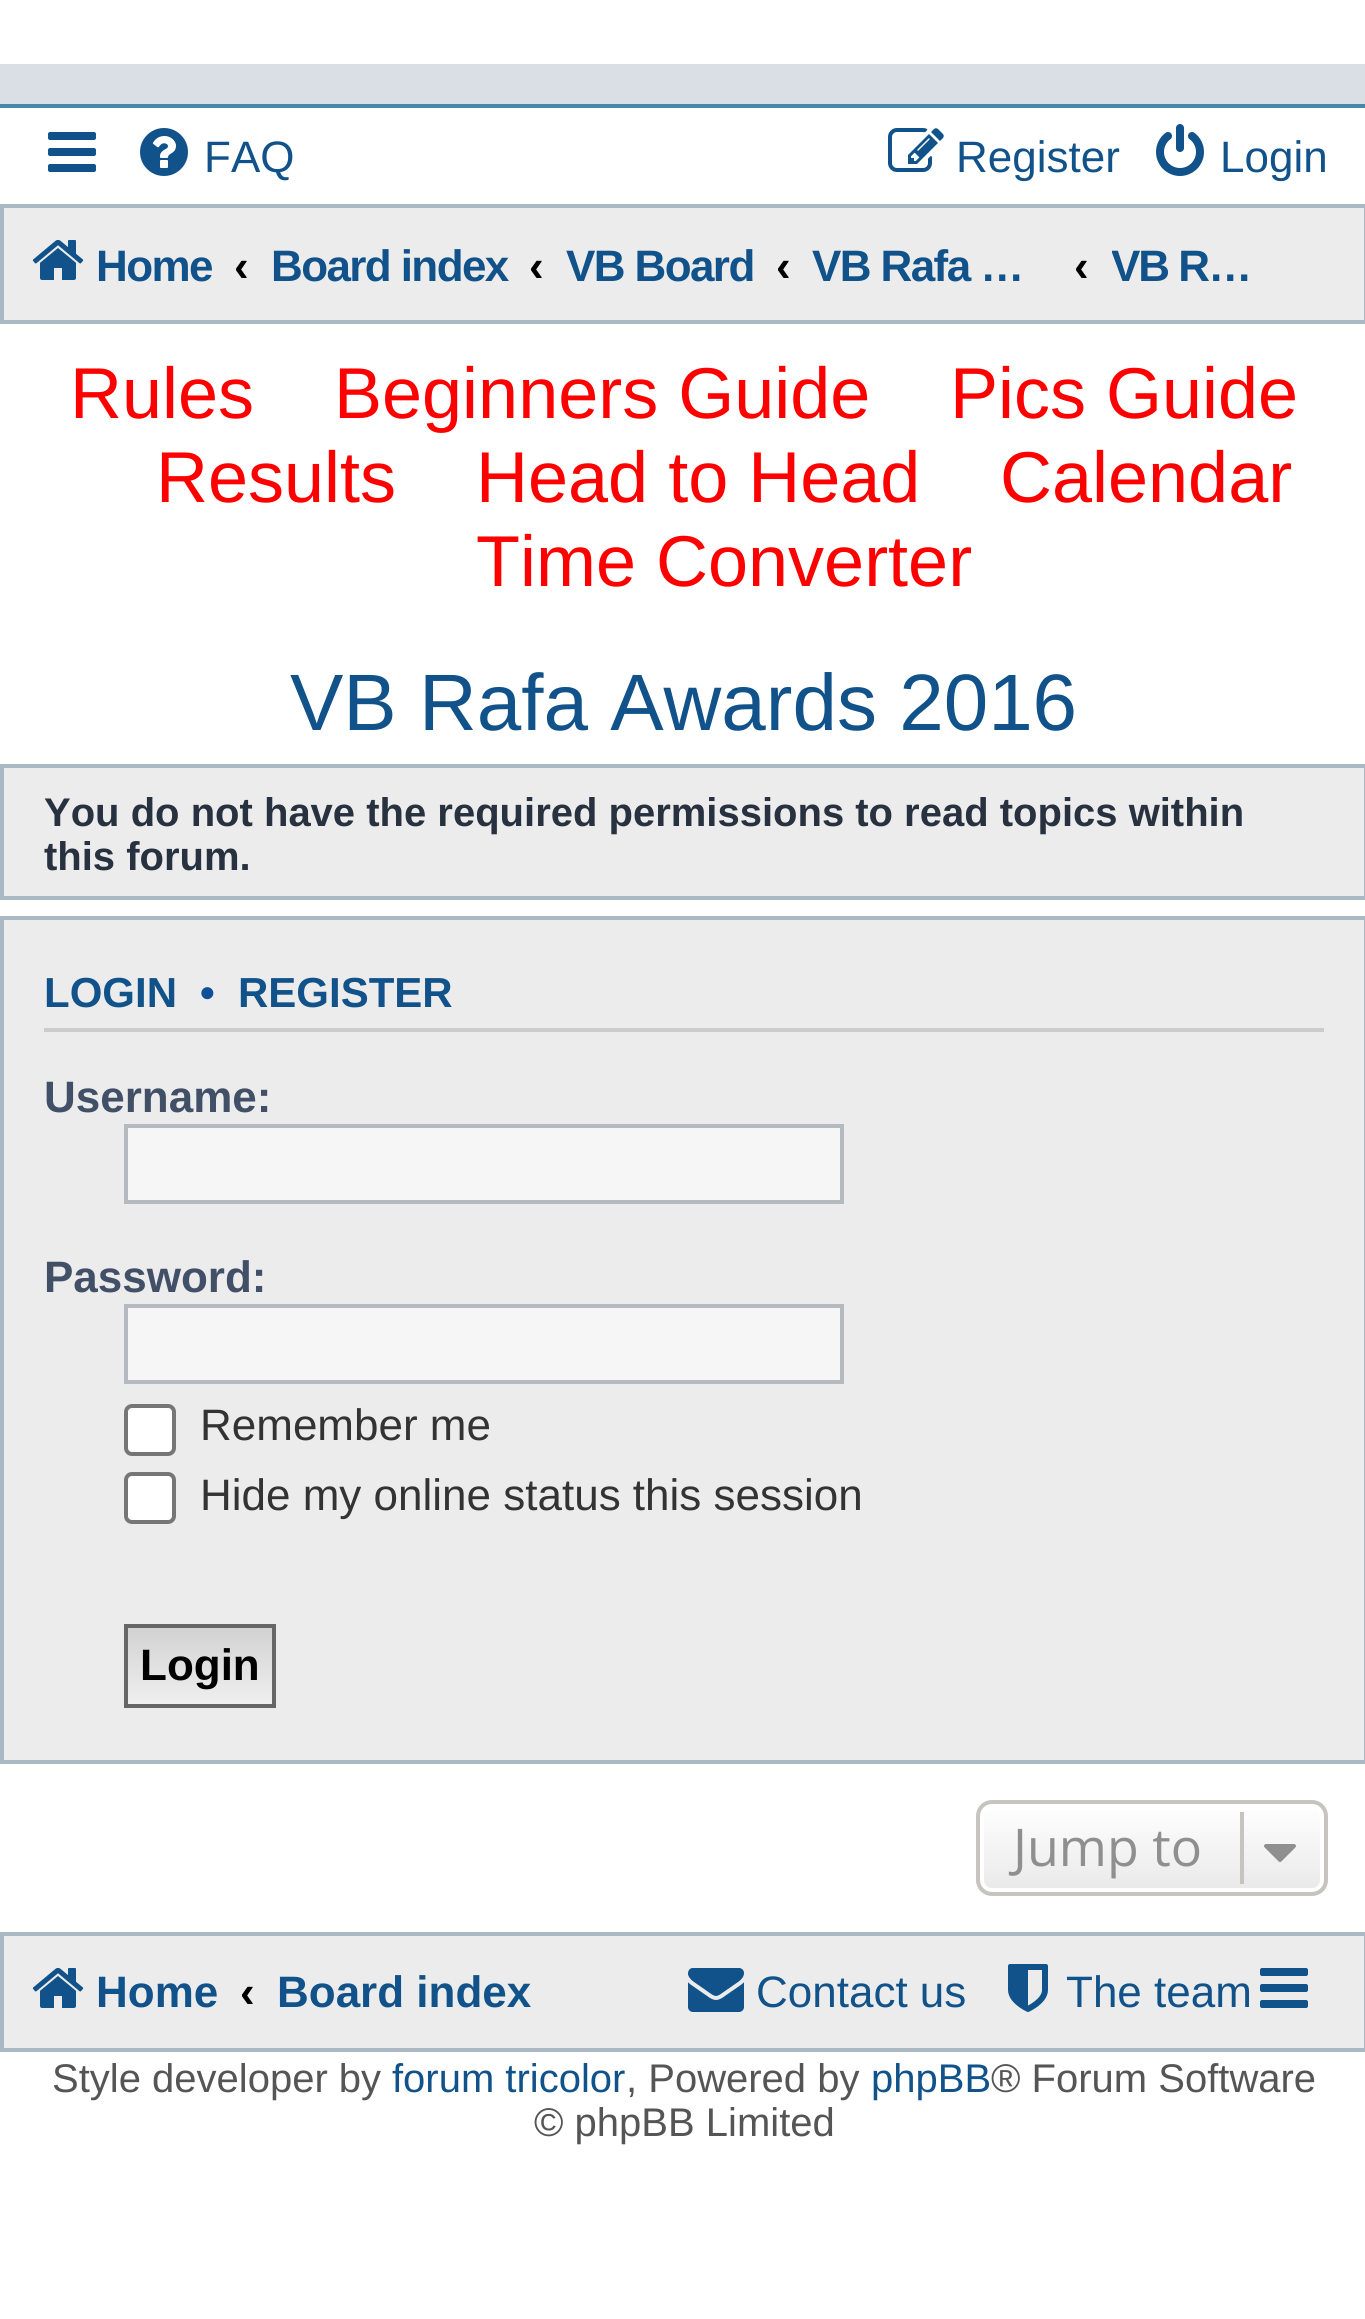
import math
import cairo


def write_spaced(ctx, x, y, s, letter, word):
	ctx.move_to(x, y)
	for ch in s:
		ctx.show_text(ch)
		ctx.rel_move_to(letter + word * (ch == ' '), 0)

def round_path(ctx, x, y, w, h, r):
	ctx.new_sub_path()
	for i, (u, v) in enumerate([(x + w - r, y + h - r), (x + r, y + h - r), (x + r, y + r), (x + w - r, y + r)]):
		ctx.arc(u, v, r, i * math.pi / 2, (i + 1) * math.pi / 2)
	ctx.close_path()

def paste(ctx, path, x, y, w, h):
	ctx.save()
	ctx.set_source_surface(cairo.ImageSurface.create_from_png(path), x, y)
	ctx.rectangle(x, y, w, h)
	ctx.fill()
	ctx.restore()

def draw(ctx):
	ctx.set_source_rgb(1, 1, 1)
	ctx.paint()
	ctx.set_source_rgb(0.851, 0.875, 0.894)
	ctx.rectangle(0, 64, 1365, 40)
	ctx.fill()
	ctx.set_source_rgb(0.278, 0.529, 0.655)
	ctx.rectangle(0, 104, 1365, 4)
	ctx.fill()
	paste(ctx, 'media/1.png', 48, 132, 48, 40)
	paste(ctx, 'media/2.png', 140, 128, 48, 48)
	ctx.select_font_face('Liberation Sans')
	ctx.set_font_size(44)
	ctx.set_source_rgb(0.063, 0.322, 0.537)
	ctx.move_to(204, 172)
	ctx.show_text('FAQ')
	paste(ctx, 'media/3.png', 888, 128, 56, 44)
	ctx.move_to(956, 172)
	ctx.show_text('Register')
	paste(ctx, 'media/4.png', 1156, 124, 48, 52)
	ctx.move_to(1220, 172)
	ctx.show_text('Login')
	ctx.set_source_rgb(0.925, 0.925, 0.925)
	ctx.rectangle(2, 206, 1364, 116)
	ctx.fill_preserve()
	ctx.set_source_rgb(0.663, 0.722, 0.761)
	ctx.set_line_width(4)
	ctx.stroke()
	paste(ctx, 'media/5.png', 32, 239, 52, 41)
	ctx.select_font_face('Liberation Sans', cairo.FONT_SLANT_NORMAL, cairo.FONT_WEIGHT_BOLD)
	ctx.set_source_rgb(0.063, 0.322, 0.537)
	write_spaced(ctx, 96, 281, 'Home', -1.6, 0)
	ctx.set_source_rgb(0, 0, 0)
	ctx.move_to(234, 281)
	ctx.show_text('‹')
	ctx.set_source_rgb(0.063, 0.322, 0.537)
	write_spaced(ctx, 271, 281, 'Board index', -1.6, 0)
	ctx.set_source_rgb(0, 0, 0)
	ctx.move_to(529, 281)
	ctx.show_text('‹')
	ctx.save()
	ctx.rectangle(564, 216, 188, 96)
	ctx.clip()
	ctx.set_source_rgb(0.063, 0.322, 0.537)
	write_spaced(ctx, 566, 281, 'VB Board', -1.6, 0)
	ctx.restore()
	ctx.move_to(776, 281)
	ctx.show_text('‹')
	ctx.set_source_rgb(0.063, 0.322, 0.537)
	write_spaced(ctx, 812, 281, 'VB Rafa …', -1.6, 0)
	ctx.set_source_rgb(0, 0, 0)
	ctx.move_to(1074, 281)
	ctx.show_text('‹')
	ctx.save()
	ctx.rectangle(1112, 216, 160, 96)
	ctx.clip()
	ctx.set_source_rgb(0.063, 0.322, 0.537)
	write_spaced(ctx, 1111, 281, 'VB R…', -2, 0)
	ctx.restore()
	ctx.select_font_face('Liberation Sans')
	ctx.set_font_size(72)
	ctx.set_source_rgb(1, 0, 0)
	for x, y, s in [
		(70, 418, 'Rules'),
		(334, 418, 'Beginners Guide'),
		(950, 418, 'Pics Guide'),
		(156, 502, 'Results'),
		(476, 502, 'Head to Head'),
		(1000, 502, 'Calendar'),
		(476, 586, 'Time Converter'),
	]:
		ctx.move_to(x, y)
		ctx.show_text(s)
	ctx.set_font_size(80)
	ctx.set_source_rgb(0.063, 0.322, 0.537)
	ctx.move_to(290, 730)
	ctx.show_text('VB Rafa Awards 2016')
	ctx.set_source_rgb(0.925, 0.925, 0.925)
	ctx.rectangle(2, 766, 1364, 132)
	ctx.fill_preserve()
	ctx.set_source_rgb(0.663, 0.722, 0.761)
	ctx.stroke()
	ctx.select_font_face('Liberation Sans', cairo.FONT_SLANT_NORMAL, cairo.FONT_WEIGHT_BOLD)
	ctx.set_font_size(40)
	ctx.set_source_rgb(0.157, 0.192, 0.247)
	ctx.move_to(44, 826)
	ctx.show_text('You do not have the required permissions to read topics within')
	ctx.move_to(44, 870)
	ctx.show_text('this forum.')
	ctx.set_source_rgb(0.925, 0.925, 0.925)
	ctx.rectangle(2, 918, 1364, 844)
	ctx.fill_preserve()
	ctx.set_source_rgb(0.663, 0.722, 0.761)
	ctx.stroke()
	ctx.set_source_rgb(0.8, 0.8, 0.8)
	ctx.rectangle(44, 1028, 1280, 4)
	ctx.fill()
	ctx.set_font_size(42)
	ctx.set_source_rgb(0.063, 0.322, 0.537)
	ctx.move_to(44, 1007)
	ctx.show_text('LOGIN')
	ctx.set_source_rgb(0.067, 0.314, 0.596)
	ctx.move_to(200, 1007)
	ctx.show_text('•')
	ctx.set_source_rgb(0.063, 0.322, 0.537)
	ctx.move_to(238, 1007)
	ctx.show_text('REGISTER')
	ctx.set_font_size(44)
	ctx.set_source_rgb(0.259, 0.314, 0.404)
	ctx.move_to(44, 1112)
	ctx.show_text('Username:')
	ctx.set_source_rgb(0.961, 0.961, 0.961)
	ctx.rectangle(126, 1126, 716, 76)
	ctx.fill_preserve()
	ctx.set_source_rgb(0.706, 0.729, 0.753)
	ctx.stroke()
	ctx.set_source_rgb(0.259, 0.314, 0.404)
	ctx.move_to(44, 1292)
	ctx.show_text('Password:')
	ctx.set_source_rgb(0.961, 0.961, 0.961)
	ctx.rectangle(126, 1306, 716, 76)
	ctx.fill_preserve()
	ctx.set_source_rgb(0.706, 0.729, 0.753)
	ctx.stroke()
	ctx.set_source_rgb(1, 1, 1)
	round_path(ctx, 126, 1406, 48, 48, 6)
	ctx.fill_preserve()
	ctx.set_source_rgb(0.463, 0.463, 0.463)
	ctx.stroke()
	ctx.select_font_face('Liberation Sans')
	ctx.set_source_rgb(0.2, 0.2, 0.2)
	ctx.move_to(200, 1440)
	ctx.show_text('Remember me')
	ctx.set_source_rgb(1, 1, 1)
	round_path(ctx, 126, 1474, 48, 48, 6)
	ctx.fill_preserve()
	ctx.set_source_rgb(0.463, 0.463, 0.463)
	ctx.stroke()
	ctx.set_source_rgb(0.2, 0.2, 0.2)
	ctx.move_to(200, 1510)
	ctx.show_text('Hide my online status this session')
	gradient = cairo.LinearGradient(200, 1628, 200, 1704)
	gradient.add_color_stop_rgba(0, 0.824, 0.824, 0.824, 1)
	gradient.add_color_stop_rgba(1, 0.937, 0.937, 0.937, 1)
	ctx.set_source(gradient)
	ctx.rectangle(128, 1628, 144, 76)
	ctx.fill()
	ctx.rectangle(126, 1626, 148, 80)
	ctx.set_source_rgb(0.4, 0.4, 0.4)
	ctx.stroke()
	ctx.select_font_face('Liberation Sans', cairo.FONT_SLANT_NORMAL, cairo.FONT_WEIGHT_BOLD)
	ctx.set_source_rgb(0, 0, 0)
	ctx.move_to(140, 1680)
	ctx.show_text('Login')
	ctx.save()
	round_path(ctx, 976, 1800, 352, 96, 16)
	ctx.clip()
	gradient = cairo.LinearGradient(1152, 1804, 1152, 1892)
	gradient.add_color_stop_rgba(0, 1, 1, 1, 1)
	gradient.add_color_stop_rgba(1, 0.914, 0.914, 0.914, 1)
	ctx.set_source(gradient)
	ctx.rectangle(976, 1804, 352, 88)
	ctx.fill()
	ctx.restore()
	round_path(ctx, 982, 1806, 340, 84, 10)
	ctx.set_source_rgb(1, 1, 1)
	ctx.stroke()
	round_path(ctx, 978, 1802, 348, 92, 14)
	ctx.set_source_rgb(0.78, 0.765, 0.749)
	ctx.stroke()
	ctx.select_font_face('Open Sans')
	ctx.set_font_size(52)
	ctx.set_source_rgb(0.561, 0.561, 0.561)
	ctx.move_to(1013, 1866)
	ctx.show_text('Jump to')
	ctx.set_source_rgb(0.78, 0.765, 0.749)
	ctx.rectangle(1240, 1812, 4, 72)
	ctx.fill()
	paste(ctx, 'media/6.png', 1264, 1844, 32, 18)
	ctx.set_source_rgb(0.925, 0.925, 0.925)
	ctx.rectangle(2, 1934, 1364, 116)
	ctx.fill_preserve()
	ctx.set_source_rgb(0.663, 0.722, 0.761)
	ctx.stroke()
	paste(ctx, 'media/5.png', 32, 1967, 52, 41)
	ctx.select_font_face('Liberation Sans', cairo.FONT_SLANT_NORMAL, cairo.FONT_WEIGHT_BOLD)
	ctx.set_font_size(44)
	ctx.set_source_rgb(0.063, 0.322, 0.537)
	ctx.move_to(96, 2007)
	ctx.show_text('Home')
	ctx.set_source_rgb(0, 0, 0)
	ctx.move_to(240, 2007)
	ctx.show_text('‹')
	ctx.set_source_rgb(0.063, 0.322, 0.537)
	ctx.move_to(277, 2007)
	ctx.show_text('Board index')
	paste(ctx, 'media/7.png', 688, 1968, 56, 44)
	ctx.select_font_face('Liberation Sans')
	ctx.move_to(756, 2007)
	ctx.show_text('Contact us')
	paste(ctx, 'media/8.png', 1008, 1964, 40, 48)
	ctx.move_to(1066, 2007)
	ctx.show_text('The team')
	paste(ctx, 'media/9.png', 1260, 1968, 48, 40)
	ctx.set_font_size(40)
	ctx.set_source_rgb(0.333, 0.333, 0.333)
	ctx.move_to(52, 2092)
	ctx.show_text('Style developer by')
	ctx.set_source_rgb(0.063, 0.322, 0.537)
	ctx.move_to(392, 2092)
	ctx.show_text('forum tricolor')
	ctx.set_source_rgb(0.333, 0.333, 0.333)
	ctx.move_to(626, 2092)
	ctx.show_text(', Powered by')
	ctx.set_source_rgb(0.063, 0.322, 0.537)
	ctx.move_to(871, 2092)
	ctx.show_text('phpBB')
	ctx.set_source_rgb(0.333, 0.333, 0.333)
	ctx.move_to(991, 2092)
	ctx.show_text('® Forum Software')
	ctx.move_to(534, 2136)
	ctx.show_text('© phpBB Limited')


surface = cairo.ImageSurface(cairo.FORMAT_RGB24, 1365, 2319)
ctx = cairo.Context(surface)
options = cairo.FontOptions()
options.set_hint_metrics(cairo.HINT_METRICS_OFF)
options.set_hint_style(cairo.HINT_STYLE_NONE)
ctx.set_font_options(options)
ctx.set_miter_limit(4)
draw(ctx)
surface.write_to_png('image.png')
